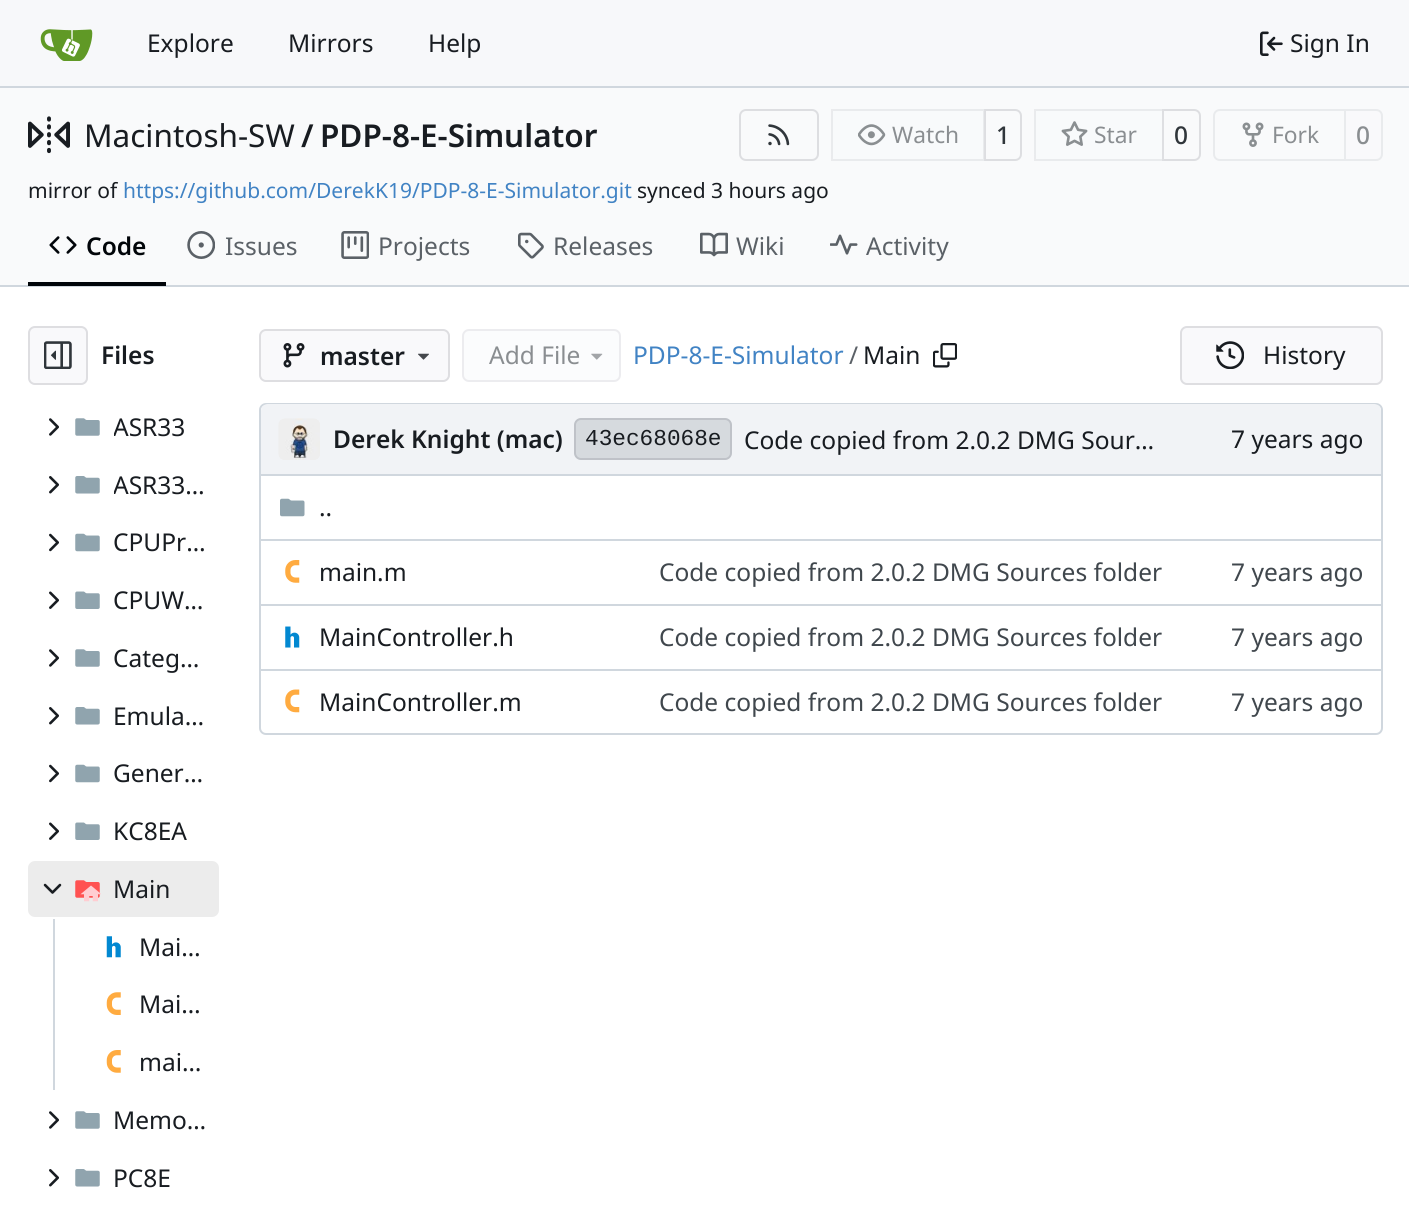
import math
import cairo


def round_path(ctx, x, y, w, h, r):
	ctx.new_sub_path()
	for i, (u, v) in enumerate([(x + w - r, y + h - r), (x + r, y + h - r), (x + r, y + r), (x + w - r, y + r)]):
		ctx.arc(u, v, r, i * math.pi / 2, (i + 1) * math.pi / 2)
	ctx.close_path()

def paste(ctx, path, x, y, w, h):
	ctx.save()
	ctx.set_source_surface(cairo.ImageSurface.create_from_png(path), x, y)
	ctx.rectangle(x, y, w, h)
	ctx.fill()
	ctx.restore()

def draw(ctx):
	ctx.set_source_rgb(1, 1, 1)
	ctx.paint()
	ctx.set_source_rgb(0.965, 0.969, 0.98)
	ctx.rectangle(0, 0, 1409, 86)
	ctx.fill()
	ctx.set_source_rgb(0.816, 0.843, 0.871)
	ctx.rectangle(0, 86, 1409, 2)
	ctx.fill()
	paste(ctx, 'media/1.png', 40, 29, 53, 32)
	ctx.select_font_face('Noto Sans')
	ctx.set_font_size(24.5)
	ctx.set_source_rgb(0.094, 0.11, 0.129)
	for x, y, s in [
		(147, 52, 'Explore'),
		(288, 52, 'Mirrors'),
		(428, 52, 'Help'),
	]:
		ctx.move_to(x, y)
		ctx.show_text(s)
	paste(ctx, 'media/2.png', 1260, 31, 23, 25)
	ctx.move_to(1290, 52)
	ctx.show_text('Sign In')
	ctx.set_source_rgb(0.976, 0.98, 0.984)
	ctx.rectangle(0, 88, 1409, 197)
	ctx.fill()
	paste(ctx, 'media/3.png', 28, 116, 42, 38)
	ctx.set_font_size(31.5)
	ctx.set_source_rgb(0.094, 0.11, 0.129)
	ctx.move_to(84, 147)
	ctx.show_text('Macintosh-SW')
	ctx.select_font_face('Noto Sans SemiBold')
	ctx.move_to(301, 147)
	ctx.show_text('/')
	ctx.move_to(320, 147)
	ctx.show_text('PDP-8-E-Simulator')
	round_path(ctx, 740, 110, 78, 50, 6)
	ctx.set_source_rgb(0.867, 0.871, 0.882)
	ctx.stroke()
	paste(ctx, 'media/4.png', 768, 124, 22, 22)
	ctx.new_path()
	ctx.move_to(985, 110)
	ctx.line_to(1015, 110)
	ctx.curve_to(1018.5, 110, 1021, 112.5, 1021, 116)
	ctx.line_to(1021, 154)
	ctx.curve_to(1021, 157.5, 1018.5, 160, 1015, 160)
	ctx.line_to(985, 160)
	ctx.close_path()
	ctx.stroke()
	ctx.set_source_rgba(0.973, 0.976, 0.984, 0.55)
	ctx.new_path()
	ctx.move_to(838, 109)
	ctx.line_to(985, 109)
	ctx.line_to(985, 161)
	ctx.line_to(838, 161)
	ctx.curve_to(834, 161, 831, 158, 831, 154)
	ctx.line_to(831, 116)
	ctx.curve_to(831, 112, 834, 109, 838, 109)
	ctx.close_path()
	ctx.fill()
	ctx.rectangle(832, 110, 152, 50)
	ctx.set_source_rgba(0, 0, 0.09, 0.06)
	ctx.stroke()
	paste(ctx, 'media/5.png', 858, 124, 28, 22)
	ctx.select_font_face('Noto Sans')
	ctx.set_font_size(22.75)
	ctx.set_source_rgb(0.541, 0.557, 0.569)
	ctx.move_to(892, 143)
	ctx.show_text('Watch')
	ctx.select_font_face('Noto Sans Medium')
	ctx.set_font_size(24.5)
	ctx.set_source_rgb(0.188, 0.212, 0.231)
	ctx.move_to(996, 144)
	ctx.show_text('1')
	ctx.new_path()
	ctx.move_to(1163, 110)
	ctx.line_to(1194, 110)
	ctx.curve_to(1197.5, 110, 1200, 112.5, 1200, 116)
	ctx.line_to(1200, 154)
	ctx.curve_to(1200, 157.5, 1197.5, 160, 1194, 160)
	ctx.line_to(1163, 160)
	ctx.close_path()
	ctx.set_source_rgb(0.867, 0.871, 0.882)
	ctx.stroke()
	ctx.set_source_rgba(0.973, 0.976, 0.984, 0.55)
	ctx.new_path()
	ctx.move_to(1041, 109)
	ctx.line_to(1164, 109)
	ctx.line_to(1164, 161)
	ctx.line_to(1041, 161)
	ctx.curve_to(1037, 161, 1034, 158, 1034, 154)
	ctx.line_to(1034, 116)
	ctx.curve_to(1034, 112, 1037, 109, 1041, 109)
	ctx.close_path()
	ctx.fill()
	ctx.rectangle(1035, 110, 128, 50)
	ctx.set_source_rgba(0, 0, 0.09, 0.06)
	ctx.stroke()
	paste(ctx, 'media/6.png', 1061, 121, 27, 25)
	ctx.select_font_face('Noto Sans')
	ctx.set_font_size(22.75)
	ctx.set_source_rgb(0.541, 0.557, 0.569)
	ctx.move_to(1094, 143)
	ctx.show_text('Star')
	ctx.select_font_face('Noto Sans Medium')
	ctx.set_font_size(24.5)
	ctx.set_source_rgb(0.188, 0.212, 0.231)
	ctx.move_to(1174, 144)
	ctx.show_text('0')
	ctx.new_path()
	ctx.move_to(1220, 110)
	ctx.line_to(1345, 110)
	ctx.line_to(1345, 160)
	ctx.line_to(1220, 160)
	ctx.curve_to(1216.5, 160, 1214, 157.5, 1214, 154)
	ctx.line_to(1214, 116)
	ctx.curve_to(1214, 112.5, 1216.5, 110, 1220, 110)
	ctx.close_path()
	ctx.set_source_rgb(0.914, 0.918, 0.929)
	ctx.stroke()
	paste(ctx, 'media/7.png', 1242, 122, 22, 25)
	ctx.select_font_face('Noto Sans')
	ctx.set_font_size(22.75)
	ctx.set_source_rgb(0.541, 0.557, 0.569)
	ctx.move_to(1272, 143)
	ctx.show_text('Fork')
	ctx.set_source_rgb(0.973, 0.976, 0.984)
	ctx.new_path()
	ctx.move_to(1345, 110)
	ctx.line_to(1376, 110)
	ctx.curve_to(1379.5, 110, 1382, 112.5, 1382, 116)
	ctx.line_to(1382, 154)
	ctx.curve_to(1382, 157.5, 1379.5, 160, 1376, 160)
	ctx.line_to(1345, 160)
	ctx.close_path()
	ctx.fill_preserve()
	ctx.set_source_rgb(0.914, 0.918, 0.929)
	ctx.stroke()
	ctx.select_font_face('Noto Sans Medium')
	ctx.set_font_size(24.5)
	ctx.set_source_rgb(0.541, 0.557, 0.569)
	ctx.move_to(1356, 144)
	ctx.show_text('0')
	ctx.select_font_face('Noto Sans')
	ctx.set_font_size(21)
	ctx.set_source_rgb(0.094, 0.11, 0.129)
	ctx.move_to(28, 198)
	ctx.show_text('mirror of')
	ctx.set_source_rgb(0.255, 0.514, 0.769)
	ctx.move_to(123, 198)
	ctx.show_text('https://github.com/DerekK19/PDP-8-E-Simulator.git')
	ctx.set_source_rgb(0.094, 0.11, 0.129)
	ctx.move_to(637, 198)
	ctx.show_text('synced 3 hours ago')
	ctx.set_source_rgb(0.816, 0.843, 0.871)
	ctx.rectangle(0, 285, 1409, 2)
	ctx.fill()
	ctx.set_source_rgb(0.004, 0.02, 0.039)
	ctx.rectangle(28, 282, 138, 4)
	ctx.fill()
	paste(ctx, 'media/8.png', 49, 236, 28, 18)
	ctx.select_font_face('Noto Sans SemiBold')
	ctx.set_font_size(24.5)
	ctx.move_to(86, 255)
	ctx.show_text('Code')
	paste(ctx, 'media/9.png', 187, 231, 28, 28)
	ctx.select_font_face('Noto Sans')
	ctx.set_source_rgb(0.357, 0.38, 0.404)
	ctx.move_to(225, 255)
	ctx.show_text('Issues')
	paste(ctx, 'media/10.png', 341, 231, 28, 28)
	ctx.move_to(378, 255)
	ctx.show_text('Projects')
	paste(ctx, 'media/11.png', 518, 232, 26, 27)
	ctx.move_to(553, 255)
	ctx.show_text('Releases')
	paste(ctx, 'media/12.png', 700, 232, 28, 25)
	ctx.move_to(736, 255)
	ctx.show_text('Wiki')
	paste(ctx, 'media/13.png', 830, 234, 28, 21)
	ctx.move_to(866, 255)
	ctx.show_text('Activity')
	ctx.set_source_rgb(0.973, 0.976, 0.984)
	round_path(ctx, 28, 326, 60, 59, 7)
	ctx.fill()
	round_path(ctx, 29, 327, 58, 57, 6)
	ctx.set_source_rgba(0, 0, 0.09, 0.11)
	ctx.stroke()
	paste(ctx, 'media/14.png', 44, 341, 28, 28)
	ctx.select_font_face('Noto Sans SemiBold')
	ctx.set_source_rgb(0.094, 0.11, 0.129)
	ctx.move_to(101, 364)
	ctx.show_text('Files')
	paste(ctx, 'media/15.png', 49, 418, 10, 18)
	paste(ctx, 'media/16.png', 75, 418, 25, 18)
	ctx.save()
	ctx.rectangle(114, 410, 72, 35)
	ctx.clip()
	ctx.select_font_face('Noto Sans')
	ctx.move_to(113, 436)
	ctx.show_text('ASR33')
	ctx.restore()
	paste(ctx, 'media/17.png', 49, 476, 10, 18)
	paste(ctx, 'media/18.png', 75, 476, 25, 18)
	ctx.save()
	ctx.rectangle(114, 467, 94, 35)
	ctx.clip()
	ctx.select_font_face('Noto Sans')
	ctx.move_to(113, 494)
	ctx.show_text('ASR33…')
	ctx.restore()
	paste(ctx, 'media/19.png', 49, 533, 10, 19)
	paste(ctx, 'media/20.png', 75, 533, 25, 19)
	ctx.select_font_face('Noto Sans')
	ctx.move_to(113, 551)
	ctx.show_text('CPUPr…')
	paste(ctx, 'media/21.png', 49, 591, 10, 18)
	paste(ctx, 'media/22.png', 75, 591, 25, 18)
	ctx.move_to(113, 609)
	ctx.show_text('CPUW…')
	paste(ctx, 'media/15.png', 49, 649, 10, 18)
	paste(ctx, 'media/16.png', 75, 649, 25, 18)
	ctx.move_to(113, 667)
	ctx.show_text('Categ…')
	paste(ctx, 'media/17.png', 49, 707, 10, 18)
	paste(ctx, 'media/18.png', 75, 707, 25, 18)
	ctx.move_to(113, 725)
	ctx.show_text('Emula…')
	paste(ctx, 'media/19.png', 49, 764, 10, 19)
	paste(ctx, 'media/20.png', 75, 764, 25, 19)
	ctx.move_to(113, 782)
	ctx.show_text('Gener…')
	paste(ctx, 'media/21.png', 49, 822, 10, 18)
	paste(ctx, 'media/22.png', 75, 822, 25, 18)
	ctx.move_to(113, 840)
	ctx.show_text('KC8EA')
	ctx.set_source_rgb(0.922, 0.922, 0.925)
	round_path(ctx, 28, 861, 191, 56, 7)
	ctx.fill()
	paste(ctx, 'media/23.png', 43, 883, 19, 11)
	paste(ctx, 'media/24.png', 75, 880, 26, 22)
	ctx.set_source_rgb(0.094, 0.11, 0.129)
	ctx.move_to(113, 898)
	ctx.show_text('Main')
	ctx.set_source_rgb(0.816, 0.843, 0.871)
	ctx.rectangle(53, 919, 2, 171)
	ctx.fill()
	paste(ctx, 'media/25.png', 106, 936, 15, 22)
	ctx.set_source_rgb(0.094, 0.11, 0.129)
	ctx.move_to(139, 956)
	ctx.show_text('Mai…')
	paste(ctx, 'media/26.png', 106, 992, 15, 23)
	ctx.move_to(139, 1013)
	ctx.show_text('Mai…')
	paste(ctx, 'media/27.png', 106, 1050, 15, 23)
	ctx.move_to(139, 1071)
	ctx.show_text('mai…')
	paste(ctx, 'media/15.png', 49, 1111, 10, 18)
	paste(ctx, 'media/16.png', 75, 1111, 25, 18)
	ctx.move_to(113, 1129)
	ctx.show_text('Memo…')
	paste(ctx, 'media/17.png', 49, 1169, 10, 18)
	paste(ctx, 'media/18.png', 75, 1169, 25, 18)
	ctx.move_to(113, 1187)
	ctx.show_text('PC8E')
	ctx.set_source_rgb(0.973, 0.976, 0.984)
	round_path(ctx, 259, 329, 191, 53, 7)
	ctx.fill()
	round_path(ctx, 260, 330, 189, 51, 6)
	ctx.set_source_rgba(0, 0, 0.09, 0.11)
	ctx.stroke()
	paste(ctx, 'media/28.png', 283, 343, 22, 25)
	ctx.select_font_face('Noto Sans SemiBold')
	ctx.set_source_rgb(0.094, 0.11, 0.129)
	ctx.move_to(320, 365)
	ctx.show_text('master')
	paste(ctx, 'media/29.png', 418, 353, 11, 7)
	ctx.set_source_rgb(0.984, 0.988, 0.992)
	round_path(ctx, 463, 330, 157, 51, 6)
	ctx.fill_preserve()
	ctx.set_source_rgb(0.925, 0.925, 0.937)
	ctx.stroke()
	ctx.select_font_face('Noto Sans')
	ctx.set_source_rgb(0.541, 0.557, 0.569)
	ctx.move_to(489, 364)
	ctx.show_text('Add File')
	paste(ctx, 'media/30.png', 591, 353, 12, 7)
	ctx.set_source_rgb(0.255, 0.514, 0.769)
	ctx.move_to(633, 364)
	ctx.show_text('PDP-8-E-Simulator')
	ctx.set_source_rgb(0.357, 0.38, 0.404)
	ctx.move_to(849, 364)
	ctx.show_text('/')
	ctx.set_source_rgb(0.094, 0.11, 0.129)
	ctx.move_to(863, 364)
	ctx.show_text('Main')
	paste(ctx, 'media/31.png', 933, 343, 24, 25)
	ctx.set_source_rgb(0.973, 0.976, 0.984)
	round_path(ctx, 1180, 326, 203, 59, 7)
	ctx.fill()
	round_path(ctx, 1181, 327, 201, 57, 6)
	ctx.set_source_rgba(0, 0, 0.09, 0.11)
	ctx.stroke()
	paste(ctx, 'media/32.png', 1216, 341, 28, 28)
	ctx.set_source_rgb(0.094, 0.11, 0.129)
	ctx.move_to(1263, 364)
	ctx.show_text('History')
	round_path(ctx, 260, 404, 1122, 330, 6)
	ctx.set_source_rgb(0.816, 0.843, 0.871)
	ctx.stroke()
	ctx.set_source_rgb(0.945, 0.953, 0.961)
	ctx.new_path()
	ctx.move_to(268, 404)
	ctx.line_to(1374, 404)
	ctx.curve_to(1378, 404, 1381, 407, 1381, 411)
	ctx.line_to(1381, 474)
	ctx.line_to(261, 474)
	ctx.line_to(261, 411)
	ctx.curve_to(261, 407, 264, 404, 268, 404)
	ctx.close_path()
	ctx.fill()
	paste(ctx, 'media/33.png', 278, 418, 42, 42)
	ctx.select_font_face('Noto Sans SemiBold')
	ctx.set_source_rgb(0.094, 0.11, 0.129)
	ctx.move_to(333, 448)
	ctx.show_text('Derek Knight (mac)')
	ctx.set_source_rgb(0.839, 0.855, 0.871)
	round_path(ctx, 574, 418, 158, 42, 7)
	ctx.fill()
	round_path(ctx, 575, 419, 156, 40, 6)
	ctx.set_source_rgba(0, 0, 0.09, 0.11)
	ctx.stroke()
	ctx.select_font_face('Liberation Mono')
	ctx.set_font_size(22.75)
	ctx.set_source_rgb(0.094, 0.11, 0.129)
	ctx.move_to(585, 445)
	ctx.show_text('43ec68068e')
	ctx.select_font_face('Noto Sans')
	ctx.set_font_size(24.5)
	ctx.move_to(744, 449)
	ctx.show_text('Code copied from 2.0.2 DMG Sour…')
	ctx.move_to(1231, 448)
	ctx.show_text('7 years ago')
	ctx.set_source_rgb(0.816, 0.843, 0.871)
	ctx.rectangle(261, 474, 1120, 2)
	ctx.fill()
	paste(ctx, 'media/34.png', 280, 498, 25, 19)
	ctx.set_source_rgb(0.094, 0.11, 0.129)
	ctx.move_to(319, 516)
	ctx.show_text('..')
	ctx.set_source_rgb(0.816, 0.843, 0.871)
	ctx.rectangle(261, 539, 952, 2)
	ctx.fill()
	paste(ctx, 'media/35.png', 285, 560, 15, 23)
	ctx.set_source_rgb(0.094, 0.11, 0.129)
	ctx.move_to(319, 581)
	ctx.show_text('main.m')
	ctx.set_source_rgb(0.251, 0.278, 0.302)
	ctx.move_to(659, 581)
	ctx.show_text('Code copied from 2.0.2 DMG Sources folder')
	ctx.set_source_rgb(0.816, 0.843, 0.871)
	ctx.rectangle(1213, 539, 168, 2)
	ctx.fill()
	ctx.set_source_rgb(0.251, 0.278, 0.302)
	ctx.move_to(1231, 581)
	ctx.show_text('7 years ago')
	ctx.set_source_rgb(0.816, 0.843, 0.871)
	ctx.rectangle(261, 604, 952, 2)
	ctx.fill()
	paste(ctx, 'media/36.png', 285, 626, 15, 22)
	ctx.set_source_rgb(0.094, 0.11, 0.129)
	ctx.move_to(319, 646)
	ctx.show_text('MainController.h')
	ctx.set_source_rgb(0.251, 0.278, 0.302)
	ctx.move_to(659, 646)
	ctx.show_text('Code copied from 2.0.2 DMG Sources folder')
	ctx.set_source_rgb(0.816, 0.843, 0.871)
	ctx.rectangle(1213, 604, 168, 2)
	ctx.fill()
	ctx.set_source_rgb(0.251, 0.278, 0.302)
	ctx.move_to(1231, 646)
	ctx.show_text('7 years ago')
	ctx.set_source_rgb(0.816, 0.843, 0.871)
	ctx.rectangle(261, 669, 952, 2)
	ctx.fill()
	paste(ctx, 'media/37.png', 285, 689, 15, 24)
	ctx.set_source_rgb(0.094, 0.11, 0.129)
	ctx.move_to(319, 711)
	ctx.show_text('MainController.m')
	ctx.set_source_rgb(0.251, 0.278, 0.302)
	ctx.move_to(659, 711)
	ctx.show_text('Code copied from 2.0.2 DMG Sources folder')
	ctx.set_source_rgb(0.816, 0.843, 0.871)
	ctx.rectangle(1213, 669, 168, 2)
	ctx.fill()
	ctx.set_source_rgb(0.251, 0.278, 0.302)
	ctx.move_to(1231, 711)
	ctx.show_text('7 years ago')


surface = cairo.ImageSurface(cairo.FORMAT_RGB24, 1409, 1221)
ctx = cairo.Context(surface)
options = cairo.FontOptions()
options.set_hint_metrics(cairo.HINT_METRICS_OFF)
options.set_hint_style(cairo.HINT_STYLE_NONE)
ctx.set_font_options(options)
ctx.set_miter_limit(4)
draw(ctx)
surface.write_to_png('image.png')
